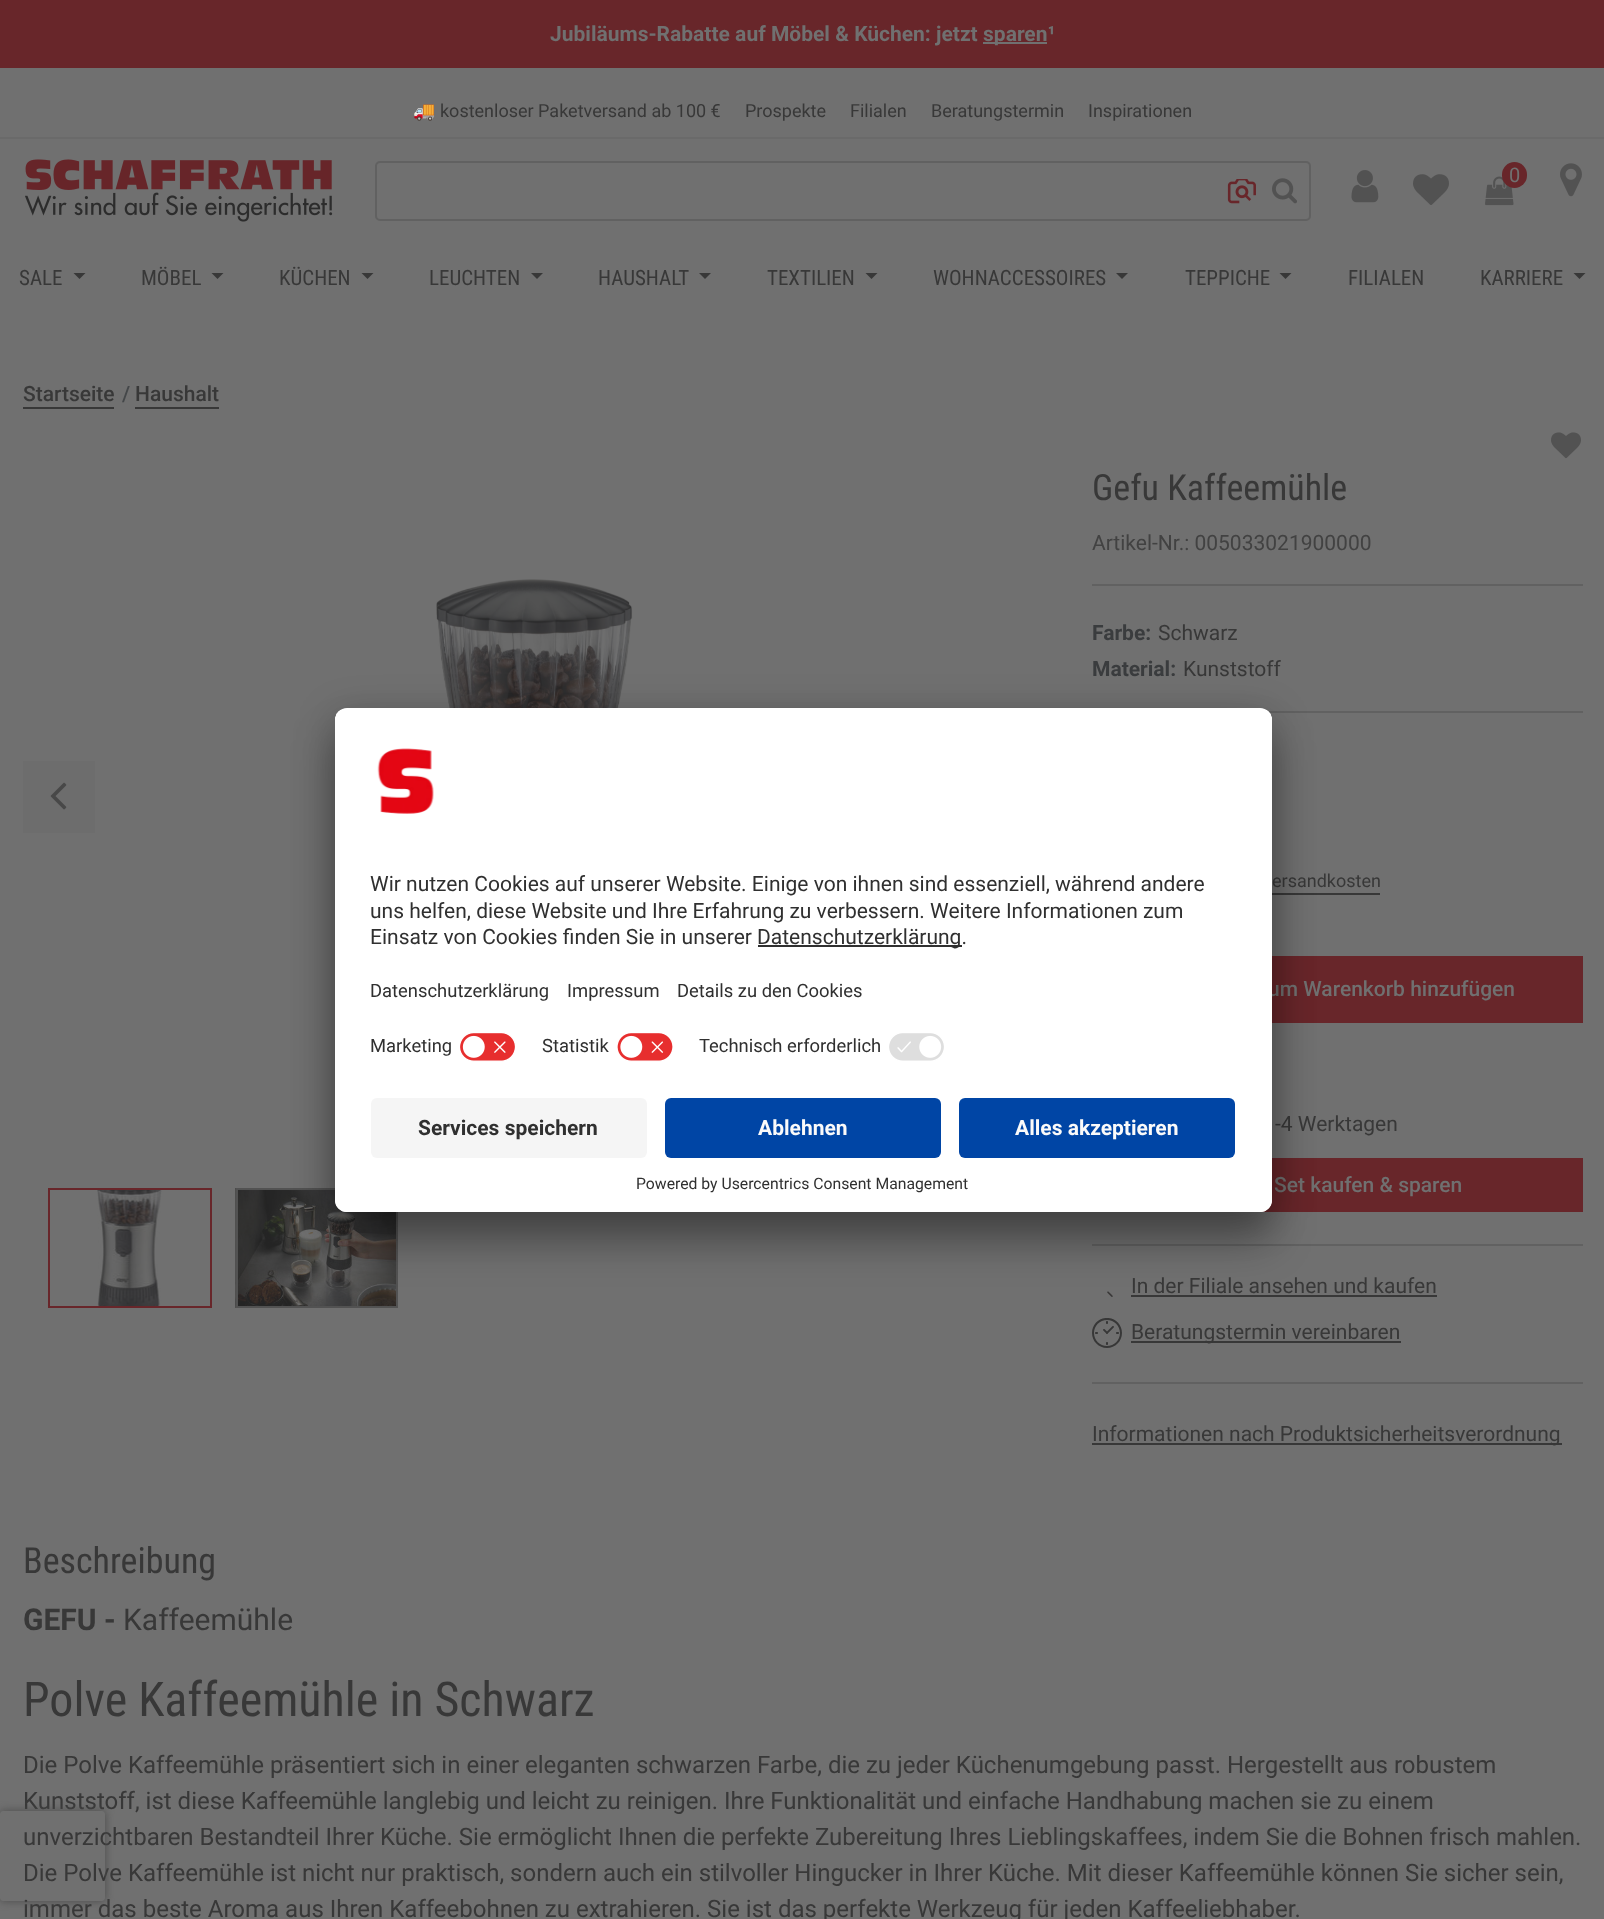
(async () => {
    const canvas = document.querySelector("canvas");
    canvas.width = 1604;
    canvas.height = 1919;
    const context = canvas.getContext("2d");
    context.miterLimit = 4;
    context.fontKerning = "normal";
    function write(s, x, y, font, color) {
        context.font = font;
        context.fillStyle = color;
        context.fillText(s, x, y);
    }
    function block(x, y, w, h, color) {
        context.fillStyle = color;
        context.fillRect(x, y, w, h);
    }
    function card(x, y, w, h, r, color) {
        context.fillStyle = color;
        context.beginPath();
        context.roundRect(x, y, w, h, r);
        context.fill();
    }
    async function photo(src, x, y, w, h) {
        const img = new Image();
        img.src = src;
        await img.decode();
        context.drawImage(img, x, y, w, h);
    }

    block(0, 0, 1604, 1919, "rgb(112, 112, 112)");
    block(0, 0, 1604, 68, "rgb(104, 38, 42)");
    write("Jubiläums-Rabatte auf Möbel & Küchen: jetzt", 550, 41, "bold 21px Roboto", "rgb(112, 112, 112)");
    block(983, 42, 64, 2, "rgb(112, 112, 112)");
    write("sparen¹", 983, 41, "bold 21px Roboto", "rgb(112, 112, 112)");
    write("🚚", 413, 117, "18px Noto Color Emoji", "rgb(56, 56, 56)");
    write("kostenloser Paketversand ab 100 €", 440, 117, "18px Roboto", "rgb(56, 56, 56)");
    write("Prospekte", 745, 117, "18px Roboto", "rgb(56, 56, 56)");
    write("Filialen", 850, 117, "18px Roboto", "rgb(56, 56, 56)");
    write("Beratungstermin", 931, 117, "18px Roboto", "rgb(56, 56, 56)");
    write("Inspirationen", 1088, 117, "18px Roboto", "rgb(56, 56, 56)");
    block(0, 137, 1604, 2, "rgb(106, 106, 106)");
    await photo("media/1.png", 25, 159, 308, 63);
    context.beginPath();
    context.roundRect(376, 162, 934, 58, 4);
    context.strokeStyle = "rgb(97, 97, 97)";
    context.lineWidth = 2;
    context.stroke();
    await photo("media/2.png", 1272, 178, 25, 26);
    await photo("media/3.png", 1227, 179, 29, 25);
    await photo("media/4.png", 1351, 170, 28, 33);
    await photo("media/5.png", 1413, 174, 36, 31);
    await photo("media/6.png", 1485, 176, 29, 30);
    card(1502, 162, 25, 26, 12.5, "rgb(104, 38, 42)");
    write("0", 1509, 182, "20px Roboto", "rgb(112, 112, 112)");
    await photo("media/7.png", 1560, 163, 22, 34);
    write("SALE", 19, 285, "21px Roboto Condensed", "rgb(56, 56, 56)");
    context.beginPath();
    context.moveTo(73.5, 273);
    context.lineTo(85.5, 273);
    context.lineTo(79.5, 279);
    context.closePath();
    context.fill();
    write("MÖBEL", 141, 285, "21px Roboto Condensed", "rgb(56, 56, 56)");
    context.beginPath();
    context.moveTo(211.5, 273);
    context.lineTo(223.5, 273);
    context.lineTo(217.5, 279);
    context.closePath();
    context.fill();
    write("KÜCHEN", 279, 285, "21px Roboto Condensed", "rgb(56, 56, 56)");
    context.beginPath();
    context.moveTo(361.5, 273);
    context.lineTo(373.5, 273);
    context.lineTo(367.5, 279);
    context.closePath();
    context.fill();
    write("LEUCHTEN", 429, 285, "21px Roboto Condensed", "rgb(56, 56, 56)");
    context.beginPath();
    context.moveTo(531, 273);
    context.lineTo(543, 273);
    context.lineTo(537, 279);
    context.closePath();
    context.fill();
    write("HAUSHALT", 598, 285, "21px Roboto Condensed", "rgb(56, 56, 56)");
    context.beginPath();
    context.moveTo(699, 273);
    context.lineTo(711, 273);
    context.lineTo(705, 279);
    context.closePath();
    context.fill();
    write("TEXTILIEN", 767, 285, "21px Roboto Condensed", "rgb(56, 56, 56)");
    context.beginPath();
    context.moveTo(865.5, 273);
    context.lineTo(877.5, 273);
    context.lineTo(871.5, 279);
    context.closePath();
    context.fill();
    write("WOHNACCESSOIRES", 933, 285, "21px Roboto Condensed", "rgb(56, 56, 56)");
    context.beginPath();
    context.moveTo(1116, 273);
    context.lineTo(1128, 273);
    context.lineTo(1122, 279);
    context.closePath();
    context.fill();
    write("TEPPICHE", 1185, 285, "21px Roboto Condensed", "rgb(56, 56, 56)");
    context.beginPath();
    context.moveTo(1279.5, 273);
    context.lineTo(1291.5, 273);
    context.lineTo(1285.5, 279);
    context.closePath();
    context.fill();
    write("FILIALEN", 1348, 285, "21px Roboto Condensed", "rgb(56, 56, 56)");
    write("KARRIERE", 1480, 285, "21px Roboto Condensed", "rgb(56, 56, 56)");
    context.beginPath();
    context.moveTo(1573.5, 273);
    context.lineTo(1585.5, 273);
    context.lineTo(1579.5, 279);
    context.closePath();
    context.fill();
    write("Startseite", 23, 401, "500 21px Roboto", "rgb(56, 56, 56)");
    block(23, 407, 91, 2, "rgb(56, 56, 56)");
    write("/", 122, 401, "500 21px Roboto", "rgb(68, 71, 73)");
    write("Haushalt", 135, 401, "500 21px Roboto", "rgb(56, 56, 56)");
    block(135, 407, 84, 2, "rgb(56, 56, 56)");
    await photo("media/8.png", 436, 579, 197, 129);
    block(23, 761, 72, 72, "rgb(109, 109, 109)");
    await photo("media/9.png", 50, 782, 17, 28);
    await photo("media/10.png", 96, 1190, 66, 116);
    context.strokeStyle = "rgb(104, 38, 42)";
    context.strokeRect(49, 1189, 162, 118);
    await photo("media/11.png", 235, 1188, 161, 120);
    context.strokeStyle = "rgb(82, 82, 82)";
    context.strokeRect(237, 1189, 160, 118);
    await photo("media/12.png", 1551, 432, 30, 27);
    write("Gefu Kaffeemühle", 1092, 500, "36px Roboto Condensed", "rgb(56, 56, 56)");
    write("Artikel-Nr.: 005033021900000", 1092, 550, "21px Roboto", "rgb(66, 66, 66)");
    block(1092, 584, 491, 2, "rgb(97, 97, 97)");
    write("Farbe:", 1092, 640, "bold 21px Roboto", "rgb(58, 60, 62)");
    write("Schwarz", 1158, 640, "21px Roboto", "rgb(56, 56, 56)");
    write("Material:", 1092, 676, "bold 21px Roboto", "rgb(58, 60, 62)");
    write("Kunststoff", 1183, 676, "21px Roboto", "rgb(56, 56, 56)");
    block(1267, 711, 316, 2, "rgb(97, 97, 97)");
    write("ersandkosten", 1272, 887, "18px Roboto", "rgb(56, 56, 56)");
    block(1272, 893, 108, 2, "rgb(56, 56, 56)");
    block(1272, 956, 311, 67, "rgb(104, 38, 42)");
    write("um Warenkorb hinzufügen", 1268, 996, "500 21px Roboto", "rgb(112, 112, 112)");
    write("-4 Werktagen", 1275, 1131, "21px Roboto", "rgb(56, 56, 56)");
    block(1260, 1158, 323, 54, "rgb(104, 38, 42)");
    write("Set kaufen & sparen", 1274, 1192, "500 21px Roboto", "rgb(112, 112, 112)");
    block(1092, 1244, 491, 2, "rgb(97, 97, 97)");
    await photo("media/13.png", 1107, 1291, 6, 6);
    write("In der Filiale ansehen und kaufen", 1131, 1293, "21px Roboto", "rgb(56, 56, 56)");
    block(1131, 1295, 306, 2, "rgb(56, 56, 56)");
    await photo("media/14.png", 1092, 1318, 30, 30);
    block(1131, 1341, 270, 2, "rgb(56, 56, 56)");
    write("Beratungstermin vereinbaren", 1131, 1339, "21px Roboto", "rgb(56, 56, 56)");
    block(1092, 1382, 491, 2, "rgb(97, 97, 97)");
    block(1092, 1443, 470, 2, "rgb(56, 56, 56)");
    write("Informationen nach Produktsicherheitsverordnung", 1092, 1441, "21px Roboto", "rgb(56, 56, 56)");
    write("Beschreibung", 23, 1573, "36px Roboto Condensed", "rgb(56, 56, 56)");
    write("GEFU -", 23, 1630, "bold 30px Roboto", "rgb(56, 56, 56)");
    write("Kaffeemühle", 123, 1630, "30px Roboto", "rgb(56, 56, 56)");
    write("Polve Kaffeemühle in Schwarz", 23, 1716, "48px Roboto Condensed", "rgb(56, 56, 56)");
    write("Die Polve Kaffeemühle präsentiert sich in einer eleganten schwarzen Farbe, die zu jeder Küchenumgebung passt. Hergestellt aus robustem", 23, 1773, "24px Roboto", "rgb(56, 56, 56)");
    write("Kunststoff, ist diese Kaffeemühle langlebig und leicht zu reinigen. Ihre Funktionalität und einfache Handhabung machen sie zu einem", 23, 1809, "24px Roboto", "rgb(56, 56, 56)");
    write("unverzichtbaren Bestandteil Ihrer Küche. Sie ermöglicht Ihnen die perfekte Zubereitung Ihres Lieblingskaffees, indem Sie die Bohnen frisch mahlen.", 23, 1845, "24px Roboto", "rgb(56, 56, 56)");
    write("Die Polve Kaffeemühle ist nicht nur praktisch, sondern auch ein stilvoller Hingucker in Ihrer Küche. Mit dieser Kaffeemühle können Sie sicher sein,", 23, 1881, "24px Roboto", "rgb(56, 56, 56)");
    write("immer das beste Aroma aus Ihren Kaffeebohnen zu extrahieren. Sie ist das perfekte Werkzeug für jeden Kaffeeliebhaber.", 23, 1917, "24px Roboto", "rgb(56, 56, 56)");
    context.fillStyle = "rgba(0, 0, 0, 0.3)";
    context.filter = "blur(21px)";
    context.beginPath();
    context.roundRect(335, 738, 937, 504, 12);
    context.fill();
    context.filter = "none";
    context.fillStyle = "rgba(0, 0, 0, 0.22)";
    context.filter = "blur(19.5px)";
    context.beginPath();
    context.roundRect(335, 716, 937, 504, 12);
    context.fill();
    context.filter = "none";
    card(335, 708, 937, 504, 12, "rgb(255, 255, 255)");
    context.save();
    context.beginPath();
    context.roundRect(335, 708, 937, 504, 12);
    context.clip();
    context.beginPath();
    context.roundRect(335, 708, 937, 378, [12, 12, 0, 0]);
    context.clip();
    block(335, 710, 937, 376, "rgb(255, 255, 255)");
    block(335, 710, 937, 316, "rgb(255, 255, 255)");
    context.restore();
    await photo("media/15.png", 377, 748, 57, 66);
    write("Wir nutzen Cookies auf unserer Website. Einige von ihnen sind essenziell, während andere", 370, 891, "21px Roboto", "rgb(48, 48, 48)");
    write("uns helfen, diese Website und Ihre Erfahrung zu verbessern. Weitere Informationen zum", 370, 918, "21px Roboto", "rgb(48, 48, 48)");
    write("Einsatz von Cookies finden Sie in unserer", 370, 944, "21px Roboto", "rgb(48, 48, 48)");
    block(758, 945, 204, 2, "rgb(48, 48, 48)");
    write("Datenschutzerklärung.", 757, 944, "21px Roboto", "rgb(48, 48, 48)");
    write("Datenschutzerklärung", 370, 997, "18.4px Roboto", "rgb(48, 48, 48)");
    write("Impressum", 567, 997, "18.4px Roboto", "rgb(48, 48, 48)");
    write("Details zu den Cookies", 677, 997, "18.4px Roboto", "rgb(48, 48, 48)");
    write("Marketing", 370, 1052, "18.4px Roboto", "rgb(48, 48, 48)");
    await photo("media/16.png", 460, 1032, 56, 30);
    write("Statistik", 542, 1052, "18.4px Roboto", "rgb(48, 48, 48)");
    await photo("media/17.png", 617, 1033, 56, 29);
    write("Technisch erforderlich", 699, 1052, "18.4px Roboto", "rgb(48, 48, 48)");
    await photo("media/18.png", 889, 1033, 55, 28);
    context.fillStyle = "rgb(255, 255, 255)";
    context.beginPath();
    context.roundRect(335, 1086, 937, 126, [0, 0, 12, 12]);
    context.fill();
    card(371, 1098, 276, 60, 6, "rgb(245, 245, 245)");
    write("Services speichern", 418, 1135, "bold 21px Roboto", "rgb(48, 48, 48)");
    card(665, 1098, 276, 60, 6, "rgb(0, 69, 165)");
    write("Ablehnen", 758, 1135, "bold 21px Roboto", "rgb(250, 250, 250)");
    card(959, 1098, 276, 60, 6, "rgb(0, 69, 165)");
    write("Alles akzeptieren", 1015, 1135, "bold 21px Roboto", "rgb(250, 250, 250)");
    write("Powered by Usercentrics Consent Management", 636, 1189, "15.75px Roboto", "rgb(48, 48, 48)");
    context.save();
    context.beginPath();
    context.moveTo(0, 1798);
    context.lineTo(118, 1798);
    context.lineTo(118, 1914);
    context.lineTo(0, 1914);
    context.closePath();
    context.moveTo(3, 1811);
    context.lineTo(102, 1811);
    context.bezierCurveTo(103.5, 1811, 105, 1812.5, 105, 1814);
    context.lineTo(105, 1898);
    context.bezierCurveTo(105, 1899.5, 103.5, 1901, 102, 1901);
    context.lineTo(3, 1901);
    context.bezierCurveTo(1.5, 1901, 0, 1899.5, 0, 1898);
    context.lineTo(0, 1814);
    context.bezierCurveTo(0, 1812.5, 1.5, 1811, 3, 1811);
    context.closePath();
    context.clip("evenodd");
    context.fillStyle = "rgb(74, 74, 74)";
    context.filter = "blur(4px)";
    context.beginPath();
    context.roundRect(0, 1811, 105, 90, 3);
    context.fill();
    context.filter = "none";
    context.restore();
})();
